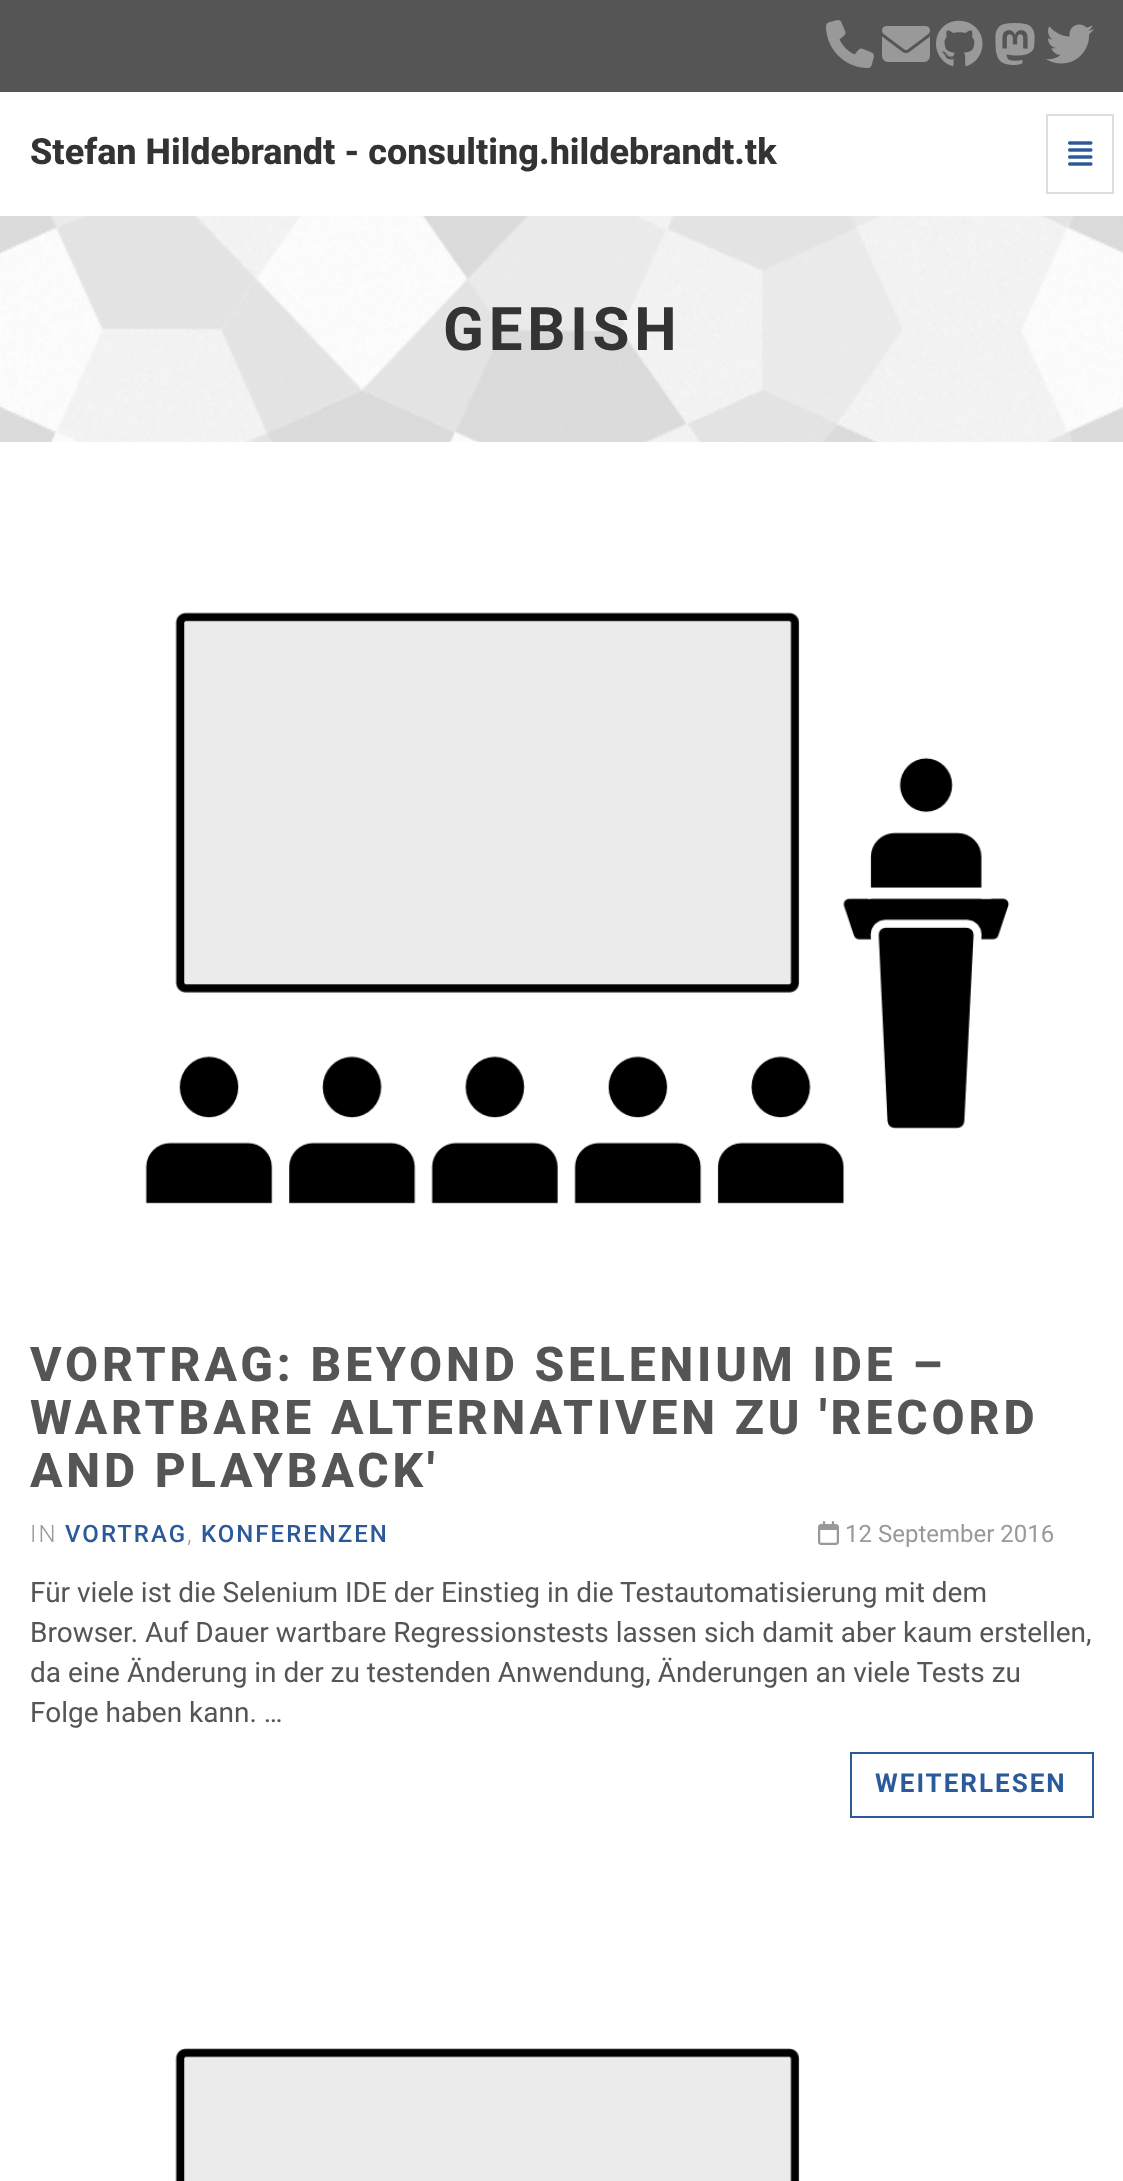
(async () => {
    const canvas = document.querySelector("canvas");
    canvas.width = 1123;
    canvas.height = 2181;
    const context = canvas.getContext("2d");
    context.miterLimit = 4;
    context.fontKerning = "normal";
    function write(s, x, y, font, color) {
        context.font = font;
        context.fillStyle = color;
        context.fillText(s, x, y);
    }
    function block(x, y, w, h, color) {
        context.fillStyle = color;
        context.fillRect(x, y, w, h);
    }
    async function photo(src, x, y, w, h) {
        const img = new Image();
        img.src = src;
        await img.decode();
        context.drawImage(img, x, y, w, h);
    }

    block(0, 0, 1123, 2181, "rgb(255, 255, 255)");
    block(0, 0, 1123, 92, "rgb(85, 85, 85)");
    await photo("media/1.png", 826, 20, 48, 48);
    await photo("media/2.png", 882, 26, 48, 36);
    await photo("media/3.png", 936, 20, 47, 46);
    await photo("media/4.png", 995, 23, 40, 42);
    await photo("media/5.png", 1046, 24, 48, 40);
    write("Stefan Hildebrandt - consulting.hildebrandt.tk", 30, 164, "800 36px Roboto", "rgb(51, 51, 51)");
    context.strokeStyle = "rgb(221, 221, 221)";
    context.lineWidth = 2;
    context.strokeRect(1047, 115, 66, 78);
    await photo("media/6.png", 1068, 141, 25, 25);
    await photo("media/7.png", 0, 216, 1123, 226);
    context.letterSpacing = "4.75px";
    write("GEBISH", 443, 350, "bold 60px Roboto", "rgb(51, 51, 51)");
    await photo("media/8.png", 145, 612, 865, 592);
    context.letterSpacing = "3.85px";
    write("VORTRAG: BEYOND SELENIUM IDE –", 30, 1381, "800 48px Roboto", "rgb(85, 85, 85)");
    write("WARTBARE ALTERNATIVEN ZU 'RECORD", 30, 1434, "800 48px Roboto", "rgb(85, 85, 85)");
    write("AND PLAYBACK'", 30, 1487, "800 48px Roboto", "rgb(85, 85, 85)");
    context.letterSpacing = "2px";
    write("IN", 30, 1542, "300 24px Roboto", "rgb(153, 153, 153)");
    write("VORTRAG", 65, 1542, "500 24px Roboto", "rgb(42, 90, 154)");
    write(",", 187, 1542, "300 24px Roboto", "rgb(153, 153, 153)");
    write("KONFERENZEN", 201, 1542, "500 24px Roboto", "rgb(42, 90, 154)");
    await photo("media/9.png", 818, 1521, 21, 24);
    context.letterSpacing = "0px";
    write("12 September 2016", 845, 1542, "24px Roboto", "rgb(153, 153, 153)");
    write("Für viele ist die Selenium IDE der Einstieg in die Testautomatisierung mit dem", 30, 1602, "28px Roboto", "rgb(85, 85, 85)");
    write("Browser. Auf Dauer wartbare Regressionstests lassen sich damit aber kaum erstellen,", 30, 1642, "28px Roboto", "rgb(85, 85, 85)");
    write("da eine Änderung in der zu testenden Anwendung, Änderungen an viele Tests zu", 30, 1682, "28px Roboto", "rgb(85, 85, 85)");
    write("Folge haben kann. …", 30, 1722, "28px Roboto", "rgb(85, 85, 85)");
    context.strokeStyle = "rgb(42, 90, 154)";
    context.strokeRect(851, 1753, 242, 64);
    context.letterSpacing = "2px";
    write("WEITERLESEN", 875, 1792, "bold 26px Roboto", "rgb(42, 90, 154)");
    await photo("media/10.png", 175, 2048, 625, 133);
})();
